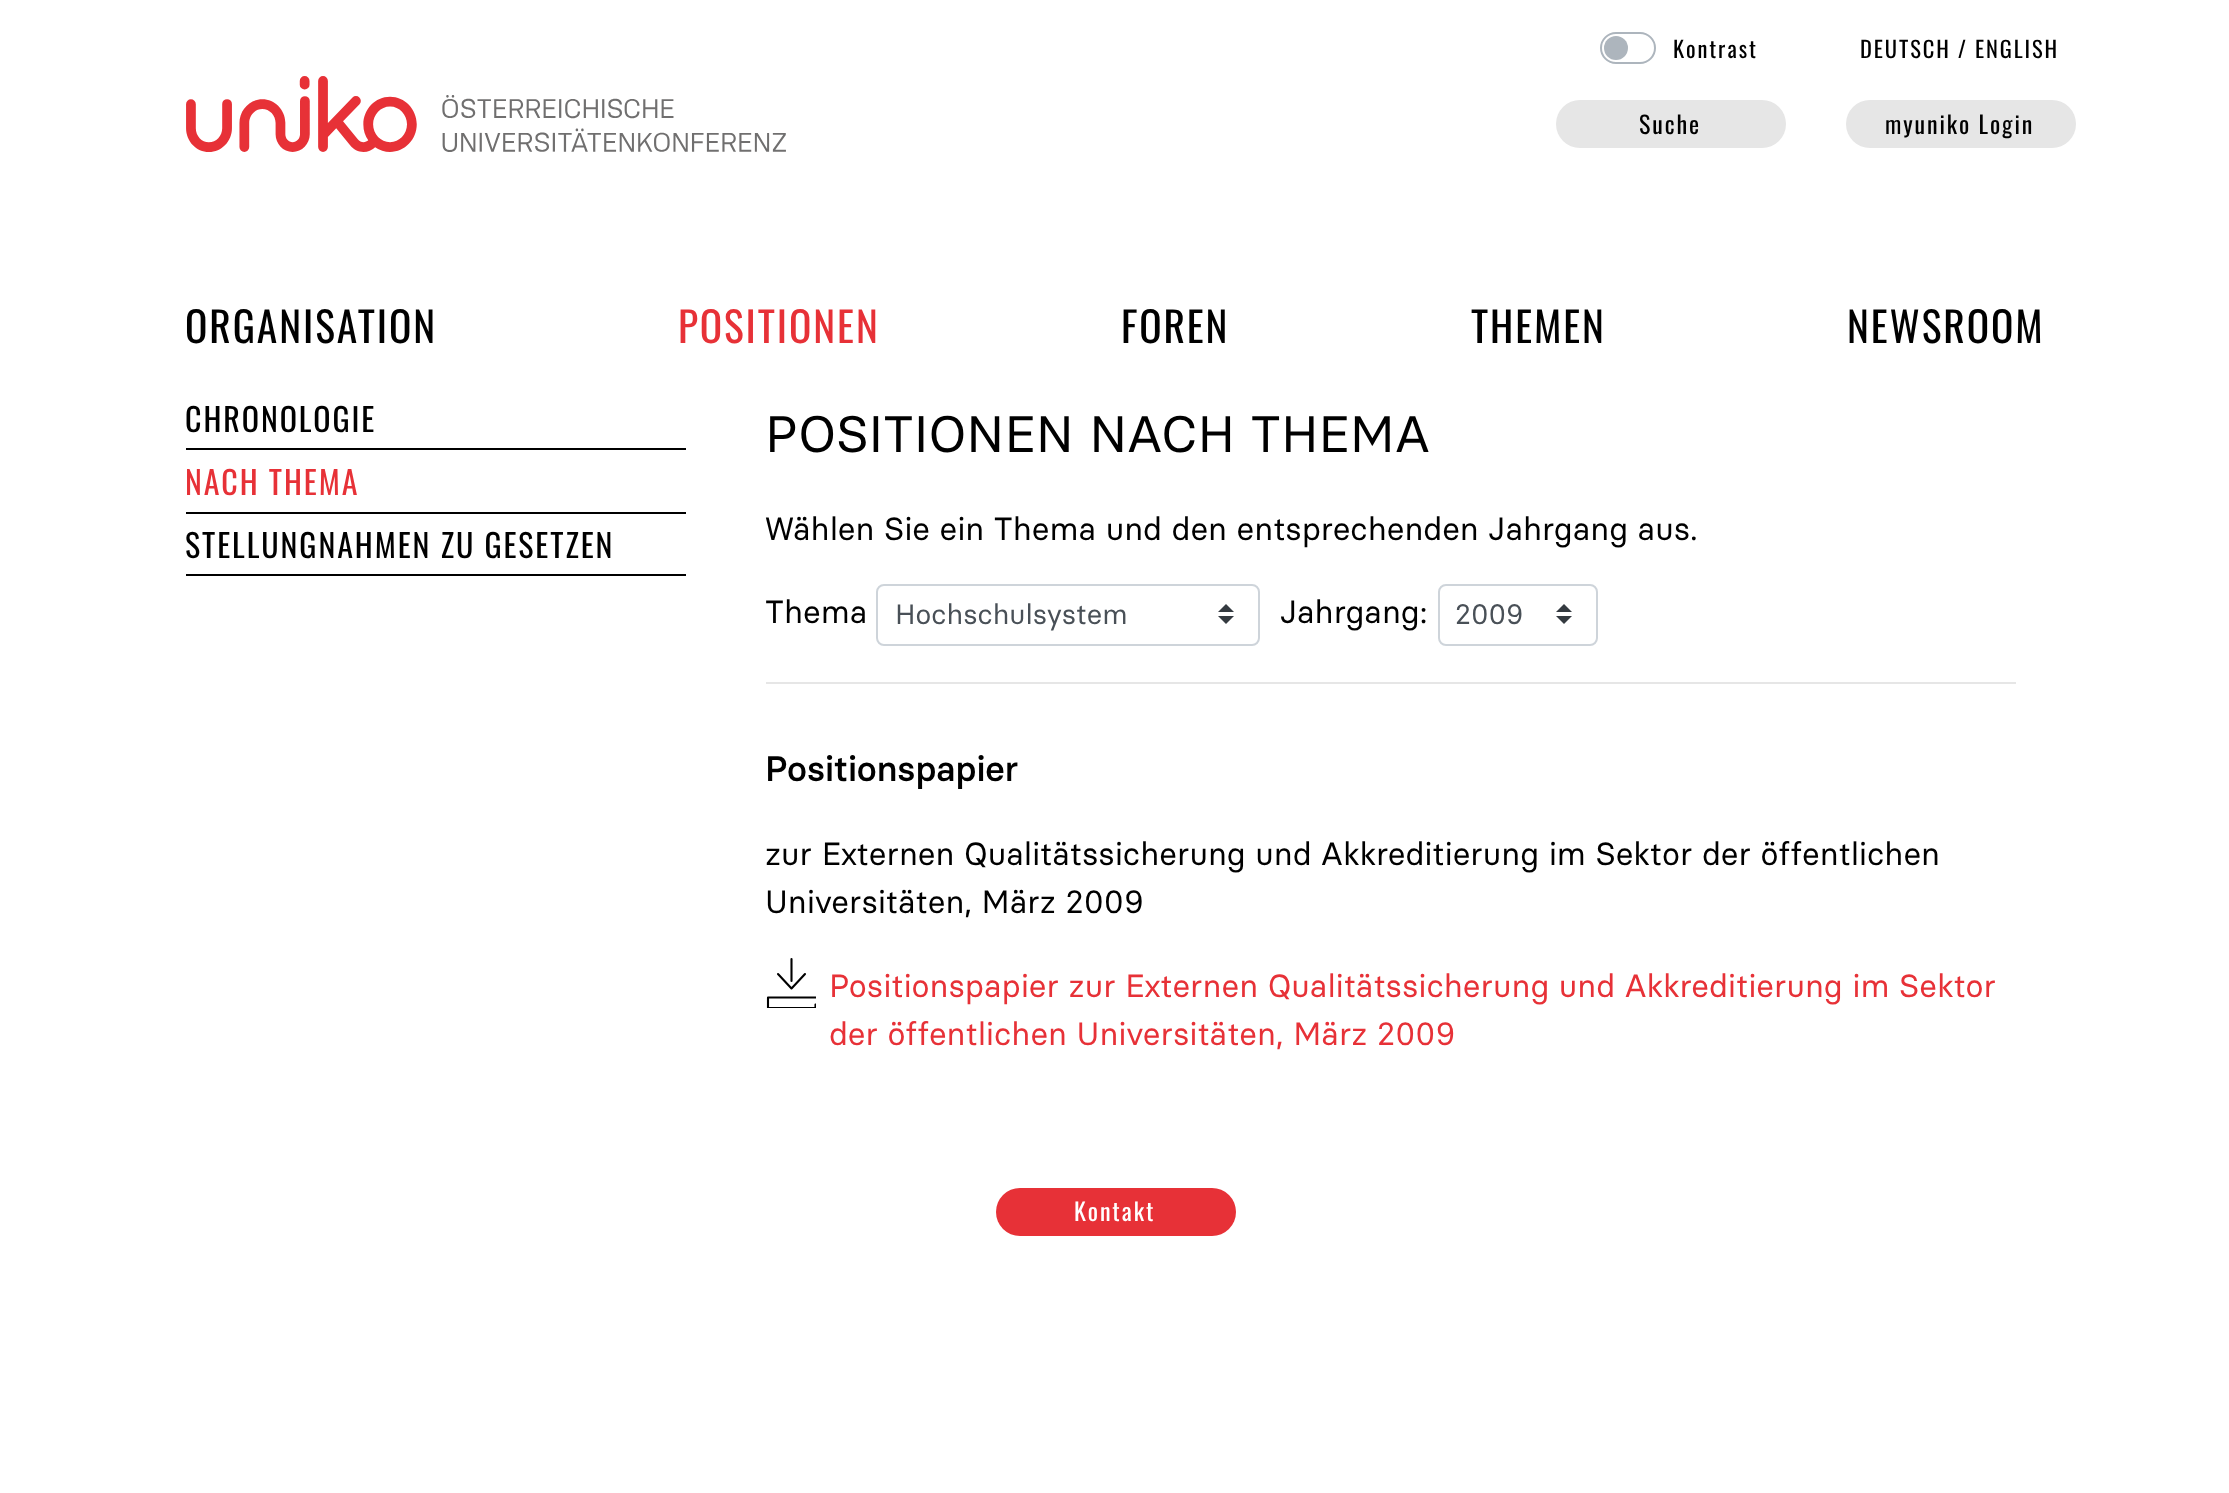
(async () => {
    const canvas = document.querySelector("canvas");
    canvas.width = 2229;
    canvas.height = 1493;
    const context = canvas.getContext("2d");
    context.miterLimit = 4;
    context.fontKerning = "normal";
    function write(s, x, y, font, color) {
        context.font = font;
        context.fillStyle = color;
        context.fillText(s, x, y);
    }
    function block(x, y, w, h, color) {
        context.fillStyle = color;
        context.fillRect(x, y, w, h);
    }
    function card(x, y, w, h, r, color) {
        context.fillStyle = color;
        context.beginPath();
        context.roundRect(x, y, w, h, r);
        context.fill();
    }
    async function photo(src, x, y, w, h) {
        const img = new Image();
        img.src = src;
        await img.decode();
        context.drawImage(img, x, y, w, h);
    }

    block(0, 0, 2229, 1493, "rgb(255, 255, 255)");
    await photo("media/1.png", 186, 76, 600, 76);
    context.beginPath();
    context.roundRect(1601, 33, 54, 30, 15);
    context.strokeStyle = "rgb(173, 181, 189)";
    context.lineWidth = 2;
    context.stroke();
    context.fillStyle = "rgb(173, 181, 189)";
    context.beginPath();
    context.arc(1616, 48, 12, 0, Math.PI * 2);
    context.fill();
    context.letterSpacing = "1.9px";
    write("Kontrast", 1673, 58, "22.5px Oswald", "rgb(0, 0, 0)");
    write("DEUTSCH / ENGLISH", 1860, 58, "22.5px Oswald", "rgb(0, 0, 0)");
    card(1556, 100, 230, 48, 24, "rgb(230, 230, 230)");
    write("Suche", 1639, 134, "24px Oswald", "rgb(0, 0, 0)");
    card(1846, 100, 230, 48, 24, "rgb(230, 230, 230)");
    write("myuniko Login", 1885, 134, "24px Oswald", "rgb(0, 0, 0)");
    write("ORGANISATION", 185, 343, "41.5px Oswald", "rgb(0, 0, 0)");
    write("POSITIONEN", 678, 343, "41.5px Oswald", "rgb(231, 49, 55)");
    write("FOREN", 1121, 343, "41.5px Oswald", "rgb(0, 0, 0)");
    write("THEMEN", 1471, 343, "41.5px Oswald", "rgb(0, 0, 0)");
    write("NEWSROOM", 1847, 343, "41.5px Oswald", "rgb(0, 0, 0)");
    block(186, 448, 500, 2, "rgb(0, 0, 0)");
    write("CHRONOLOGIE", 185, 432, "32px Oswald", "rgb(0, 0, 0)");
    block(186, 512, 500, 2, "rgb(0, 0, 0)");
    write("NACH THEMA", 185, 495, "32px Oswald", "rgb(231, 49, 55)");
    block(186, 574, 500, 2, "rgb(0, 0, 0)");
    write("STELLUNGNAHMEN ZU GESETZEN", 185, 558, "32px Oswald", "rgb(0, 0, 0)");
    context.letterSpacing = "0px";
    write("POSITIONEN NACH THEMA", 765, 452, "51.25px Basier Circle", "rgb(0, 0, 0)");
    write("Wählen Sie ein Thema und den entsprechenden Jahrgang aus.", 765, 540, "32px Basier Circle", "rgb(0, 0, 0)");
    write("Thema", 765, 623, "32px Basier Circle", "rgb(0, 0, 0)");
    context.fillStyle = "rgb(52, 58, 64)";
    context.beginPath();
    context.moveTo(1226, 604);
    context.lineTo(1218, 612);
    context.lineTo(1234, 612);
    context.closePath();
    context.moveTo(1226, 624);
    context.lineTo(1218, 616);
    context.lineTo(1234, 616);
    context.closePath();
    context.fill();
    context.beginPath();
    context.roundRect(877, 585, 382, 60, 7);
    context.strokeStyle = "rgb(206, 212, 218)";
    context.stroke();
    write("Hochschulsystem", 895, 624, "28px Basier Circle", "rgb(73, 80, 87)");
    write("Jahrgang:", 1280, 623, "32px Basier Circle", "rgb(0, 0, 0)");
    context.fillStyle = "rgb(52, 58, 64)";
    context.beginPath();
    context.moveTo(1564, 604);
    context.lineTo(1556, 612);
    context.lineTo(1572, 612);
    context.closePath();
    context.moveTo(1564, 624);
    context.lineTo(1556, 616);
    context.lineTo(1572, 616);
    context.closePath();
    context.fill();
    context.beginPath();
    context.roundRect(1439, 585, 158, 60, 7);
    context.stroke();
    write("2009", 1455, 624, "28px Basier Circle", "rgb(73, 80, 87)");
    block(766, 682, 1250, 2, "rgb(230, 230, 230)");
    write("Positionspapier", 765, 781, "500 35.25px Basier Circle", "rgb(0, 0, 0)");
    write("zur Externen Qualitätssicherung und Akkreditierung im Sektor der öffentlichen", 765, 865, "32px Basier Circle", "rgb(0, 0, 0)");
    write("Universitäten, März 2009", 765, 913, "32px Basier Circle", "rgb(0, 0, 0)");
    context.beginPath();
    context.moveTo(791.5, 981);
    context.lineTo(791.5, 959);
    context.moveTo(778, 974);
    context.lineTo(791.5, 988.5);
    context.lineTo(805, 974);
    context.strokeStyle = "rgb(0, 0, 0)";
    context.lineWidth = 2.1;
    context.lineCap = "round";
    context.lineJoin = "round";
    context.stroke();
    context.save();
    context.beginPath();
    context.rect(766, 958, 50, 50);
    context.clip();
    context.beginPath();
    context.moveTo(815.5, 997.5);
    context.lineTo(768, 997.5);
    context.lineTo(768, 1008);
    context.lineTo(815.5, 1008);
    context.lineTo(815.5, 1004.5);
    context.stroke();
    context.restore();
    write("Positionspapier zur Externen Qualitätssicherung und Akkreditierung im Sektor", 829, 997, "32px Basier Circle", "rgb(231, 49, 55)");
    write("der öffentlichen Universitäten, März 2009", 829, 1045, "32px Basier Circle", "rgb(231, 49, 55)");
    card(996, 1188, 240, 48, 24, "rgb(231, 49, 55)");
    context.letterSpacing = "1.9px";
    write("Kontakt", 1074, 1221, "24px Oswald", "rgb(255, 255, 255)");
})();
